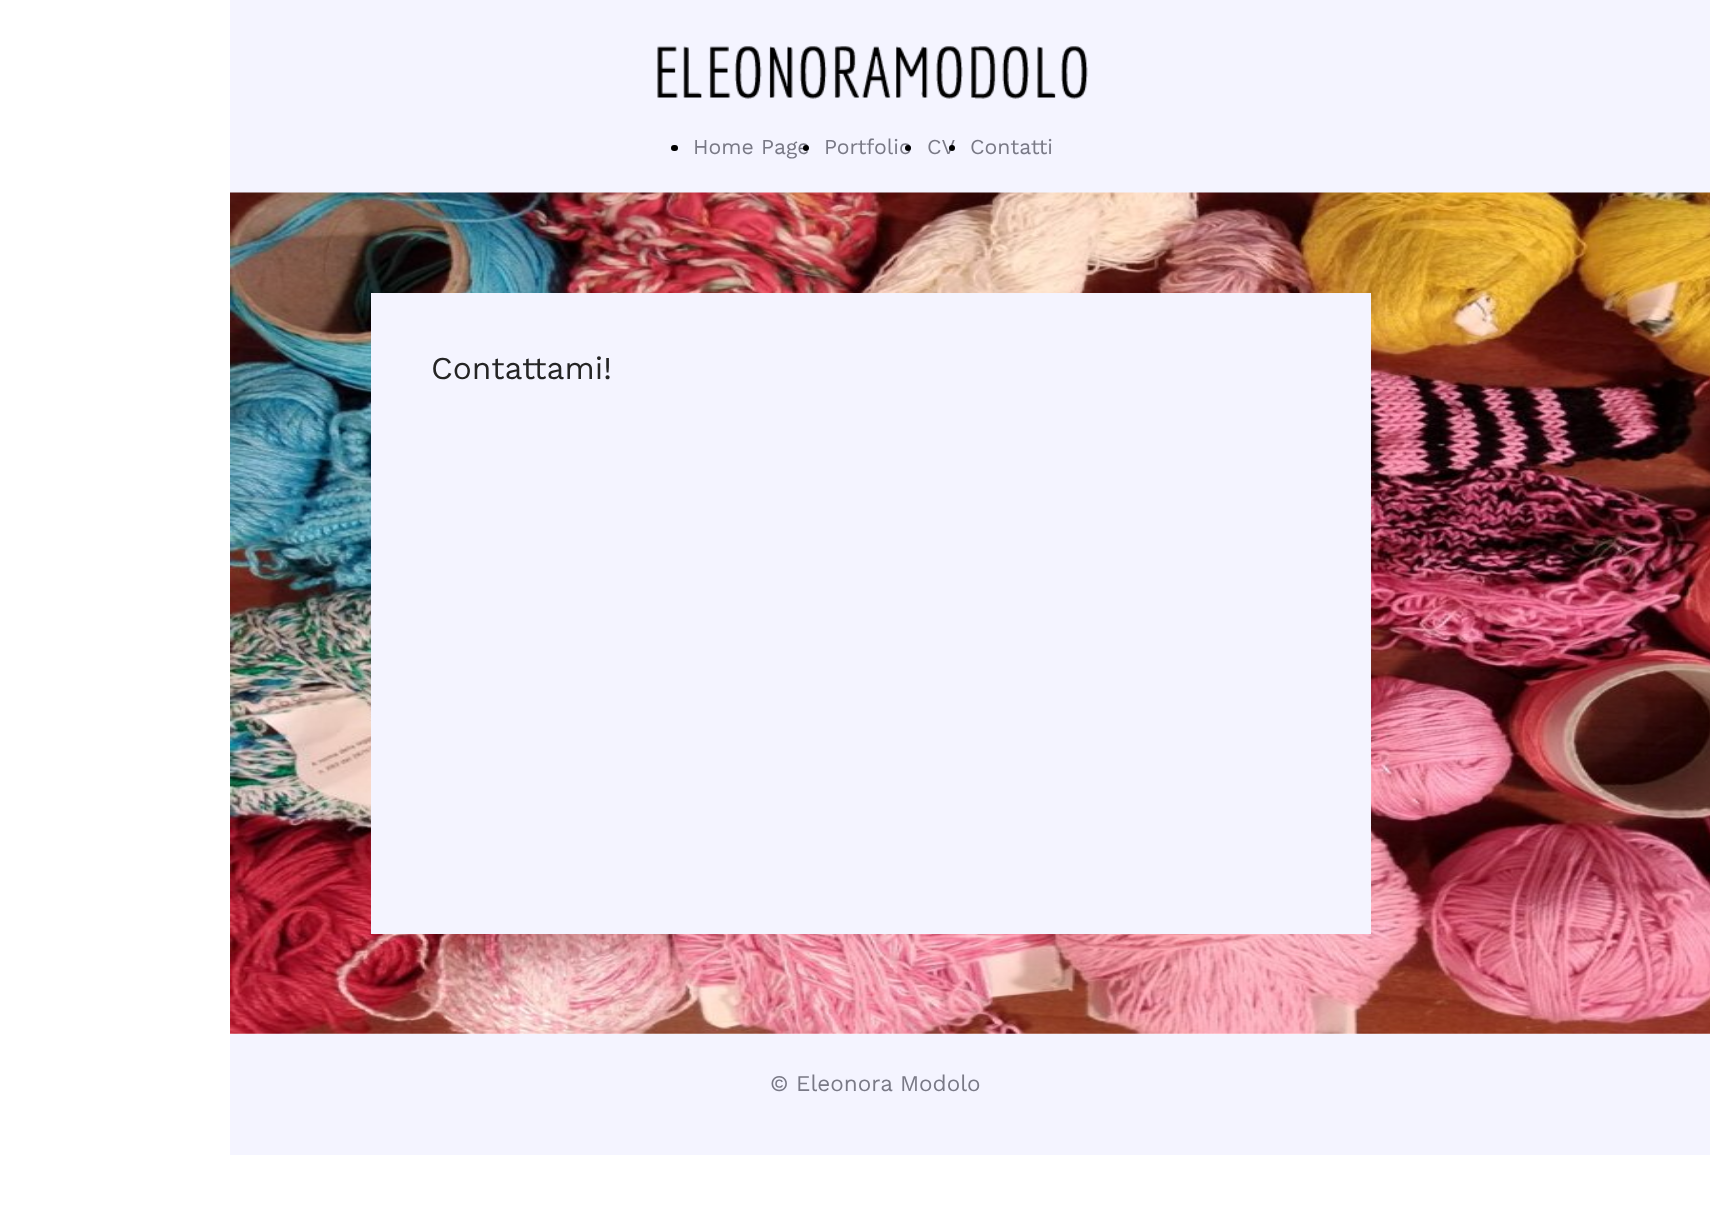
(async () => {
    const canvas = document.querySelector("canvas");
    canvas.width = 1710;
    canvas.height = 1229;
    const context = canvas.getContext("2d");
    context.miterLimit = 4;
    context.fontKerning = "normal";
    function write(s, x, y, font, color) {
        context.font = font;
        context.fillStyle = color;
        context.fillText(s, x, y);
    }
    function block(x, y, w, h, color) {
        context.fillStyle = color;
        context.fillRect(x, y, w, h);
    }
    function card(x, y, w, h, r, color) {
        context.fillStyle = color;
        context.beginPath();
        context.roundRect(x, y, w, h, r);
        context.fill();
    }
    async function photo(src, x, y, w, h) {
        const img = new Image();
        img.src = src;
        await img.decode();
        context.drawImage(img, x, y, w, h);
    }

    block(0, 0, 1710, 1229, "rgb(255, 255, 255)");
    block(230, 0, 1480, 193, "rgb(244, 244, 255)");
    await photo("media/1.png", 657, 46, 431, 53);
    card(671, 145, 7, 6, 3, "rgb(0, 0, 0)");
    write("Home Page", 693, 154, "21.25px Work Sans", "rgb(121, 121, 134)");
    context.fillStyle = "rgb(0, 0, 0)";
    context.beginPath();
    context.arc(806, 148, 3, 0, Math.PI * 2);
    context.fill();
    write("Portfolio", 824, 154, "21.25px Work Sans", "rgb(121, 121, 134)");
    context.fillStyle = "rgb(0, 0, 0)";
    context.beginPath();
    context.arc(908, 148, 3, 0, Math.PI * 2);
    context.fill();
    write("CV", 927, 154, "21.25px Work Sans", "rgb(121, 121, 134)");
    context.fillStyle = "rgb(0, 0, 0)";
    context.beginPath();
    context.arc(952, 148, 3, 0, Math.PI * 2);
    context.fill();
    write("Contatti", 970, 154, "21.25px Work Sans", "rgb(121, 121, 134)");
    await photo("media/2.png", 230, 192, 1480, 842);
    block(371, 293, 1000, 641, "rgb(244, 244, 255)");
    write("Contattami!", 431, 379, "31.75px Work Sans", "rgb(37, 37, 37)");
    block(230, 1034, 1480, 121, "rgb(244, 244, 255)");
    write("© Eleonora Modolo", 770, 1091, "22.5px Work Sans", "rgb(121, 121, 134)");
})();
